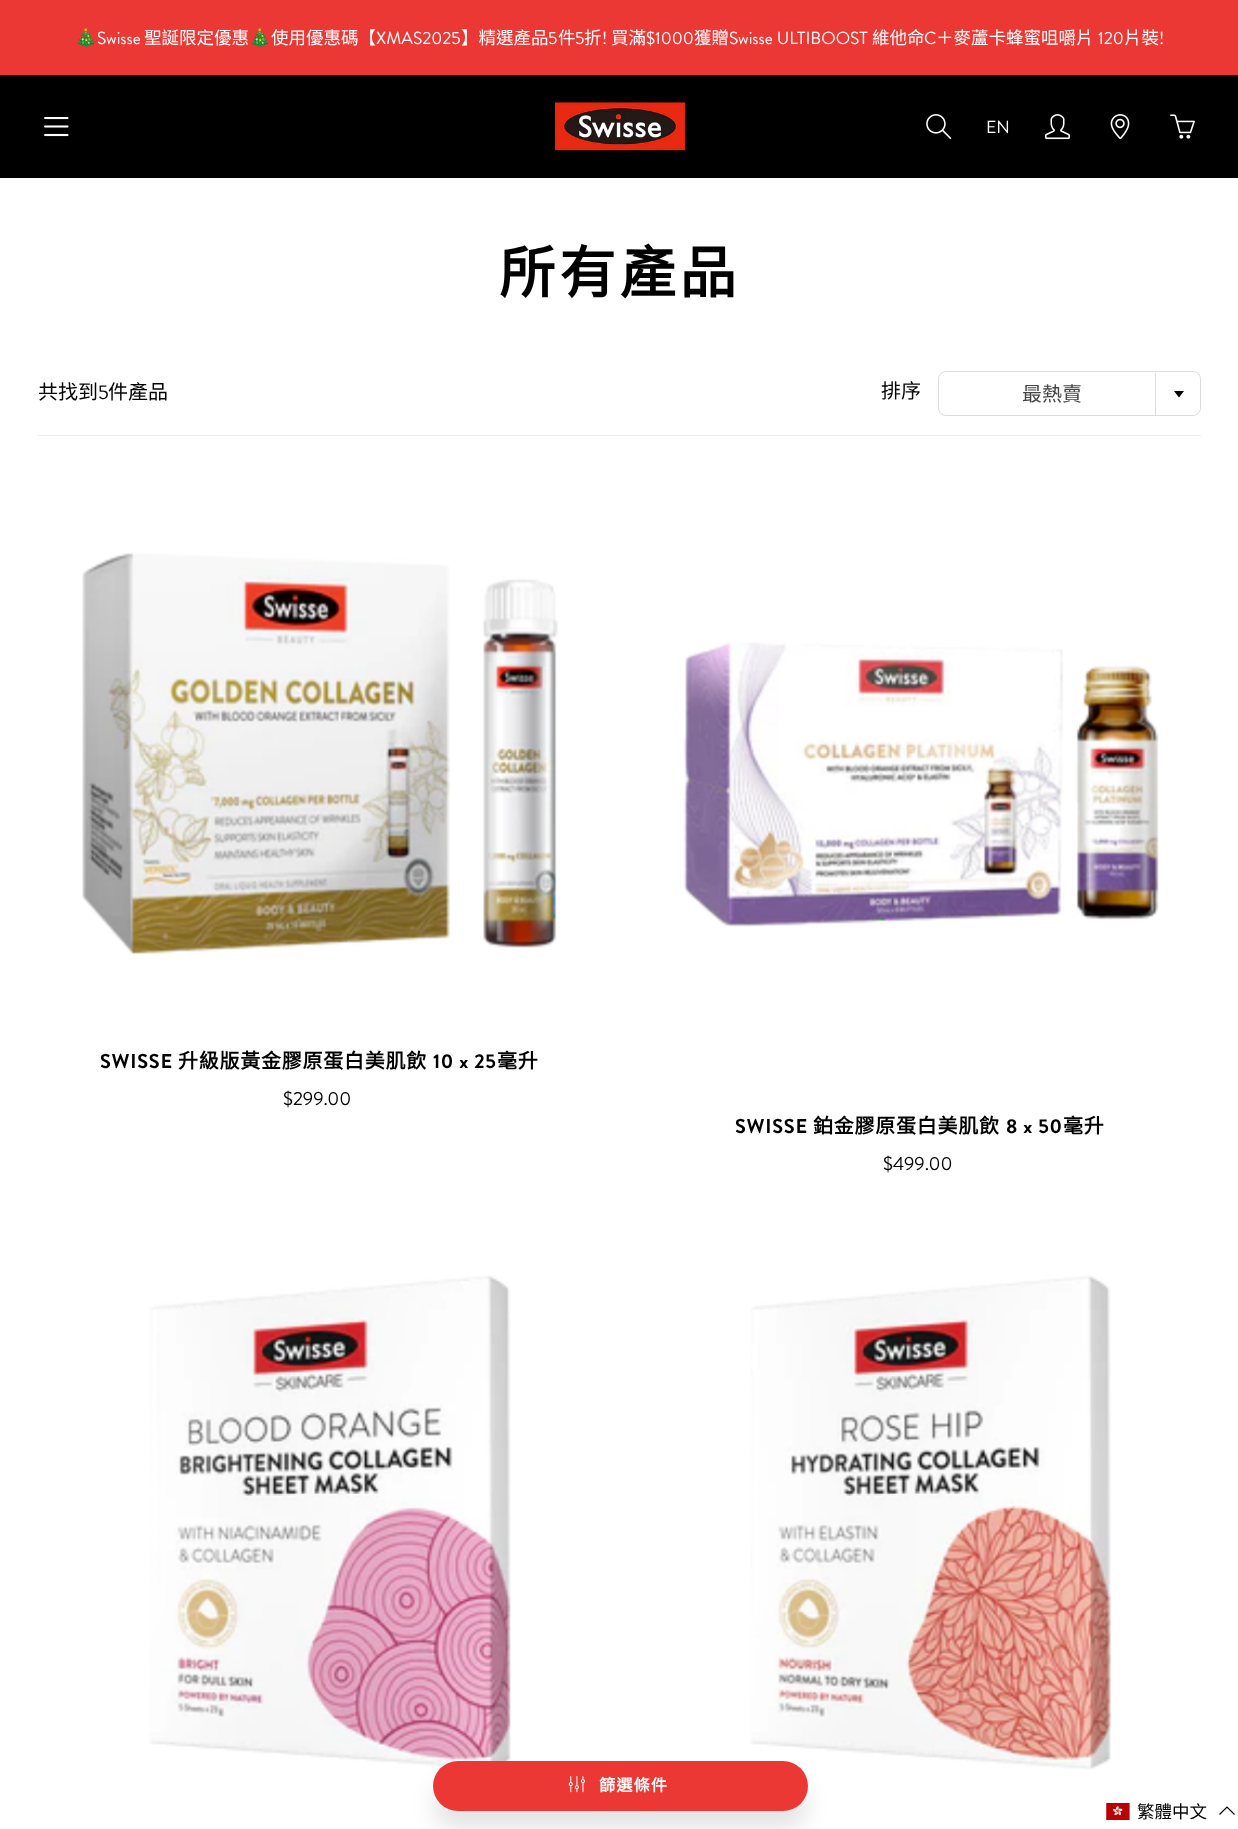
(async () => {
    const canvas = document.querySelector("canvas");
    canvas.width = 1238;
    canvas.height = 1829;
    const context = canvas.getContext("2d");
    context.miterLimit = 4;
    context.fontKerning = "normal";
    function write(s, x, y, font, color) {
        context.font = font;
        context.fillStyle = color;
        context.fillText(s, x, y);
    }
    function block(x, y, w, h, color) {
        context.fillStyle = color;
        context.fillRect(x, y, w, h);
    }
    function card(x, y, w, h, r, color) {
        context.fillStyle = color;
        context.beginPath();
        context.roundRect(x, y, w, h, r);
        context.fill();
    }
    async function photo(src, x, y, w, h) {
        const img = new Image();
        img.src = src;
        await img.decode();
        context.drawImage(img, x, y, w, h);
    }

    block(0, 0, 1238, 1829, "rgb(255, 255, 255)");
    block(0, 0, 1238, 75, "rgb(236, 56, 52)");
    write("🎄", 75, 44, "17.5px Noto Color Emoji", "rgb(255, 255, 255)");
    write("Swisse", 97, 44, "17.5px Brandon Grotesque", "rgb(255, 255, 255)");
    write("聖誕限定優惠", 144, 44, "17.5px Noto Sans CJK TC", "rgb(255, 255, 255)");
    write("🎄", 249, 44, "17.5px Noto Color Emoji", "rgb(255, 255, 255)");
    write("使用優惠碼【", 271, 44, "17.5px Noto Sans CJK TC", "rgb(255, 255, 255)");
    write("XMAS2025", 376, 44, "17.5px Brandon Grotesque", "rgb(255, 255, 255)");
    write("】精選產品", 461, 44, "17.5px Noto Sans CJK TC", "rgb(255, 255, 255)");
    write("5", 548, 44, "17.5px Brandon Grotesque", "rgb(255, 255, 255)");
    write("件", 558, 44, "17.5px Noto Sans CJK TC", "rgb(255, 255, 255)");
    write("5", 575, 44, "17.5px Brandon Grotesque", "rgb(255, 255, 255)");
    write("折", 584, 44, "17.5px Noto Sans CJK TC", "rgb(255, 255, 255)");
    write("!", 602, 44, "17.5px Brandon Grotesque", "rgb(255, 255, 255)");
    write("買滿", 611, 44, "17.5px Noto Sans CJK TC", "rgb(255, 255, 255)");
    write("$1000", 646, 44, "17.5px Brandon Grotesque", "rgb(255, 255, 255)");
    write("獲贈", 694, 44, "17.5px Noto Sans CJK TC", "rgb(255, 255, 255)");
    write("Swisse ULTIBOOST", 729, 44, "17.5px Brandon Grotesque", "rgb(255, 255, 255)");
    write("維他命", 872, 44, "17.5px Noto Sans CJK TC", "rgb(255, 255, 255)");
    write("C", 924, 44, "17.5px Brandon Grotesque", "rgb(255, 255, 255)");
    write("＋麥蘆卡蜂蜜咀嚼片", 936, 44, "17.5px Noto Sans CJK TC", "rgb(255, 255, 255)");
    write("120", 1098, 44, "17.5px Brandon Grotesque", "rgb(255, 255, 255)");
    write("片裝", 1124, 44, "17.5px Noto Sans CJK TC", "rgb(255, 255, 255)");
    write("!", 1159, 44, "17.5px Brandon Grotesque", "rgb(255, 255, 255)");
    block(0, 75, 1238, 103, "rgb(0, 0, 0)");
    await photo("media/1.png", 554, 102, 132, 49);
    await photo("media/2.png", 44, 117, 25, 20);
    await photo("media/3.png", 926, 114, 26, 25);
    write("EN", 986, 133, "17.5px Brandon Grotesque", "rgb(255, 255, 255)");
    await photo("media/4.png", 1045, 114, 25, 26);
    await photo("media/5.png", 1110, 114, 20, 26);
    await photo("media/6.png", 1170, 114, 25, 25);
    context.letterSpacing = "4px";
    write("所有產品", 499, 293, "bold 56.25px Noto Sans CJK TC", "rgb(0, 0, 0)");
    block(38, 435, 1163, 1, "rgb(237, 237, 237)");
    context.letterSpacing = "0px";
    write("共找到", 38, 399, "20px Noto Sans CJK TC", "rgb(0, 0, 0)");
    write("5", 98, 399, "20px Brandon Grotesque", "rgb(0, 0, 0)");
    write("件產品", 108, 399, "20px Noto Sans CJK TC", "rgb(0, 0, 0)");
    write("排序", 881, 398, "20px Noto Sans CJK TC", "rgb(0, 0, 0)");
    context.beginPath();
    context.roundRect(938.5, 371.5, 262, 44, 7.5);
    context.strokeStyle = "rgb(221, 221, 221)";
    context.stroke();
    write("最熱賣", 1022, 401, "20px Noto Sans CJK TC", "rgb(68, 68, 68)");
    context.fillStyle = "rgb(255, 255, 255)";
    context.beginPath();
    context.roundRect(1155, 373, 45, 42, [0, 8, 8, 0]);
    context.fill();
    block(1155, 373, 1, 42, "rgb(221, 221, 221)");
    context.fillStyle = "rgb(0, 0, 0)";
    context.beginPath();
    context.moveTo(1174, 391);
    context.lineTo(1184, 391);
    context.lineTo(1179, 397.5);
    context.closePath();
    context.fill();
    await photo("media/7.png", 82, 552, 476, 403);
    context.letterSpacing = "0.75px";
    write("SWISSE", 100, 1068, "bold 20px Brandon Grotesque", "rgb(0, 0, 0)");
    write("升級版黃金膠原蛋白美肌飲", 178, 1068, "bold 20px Noto Sans CJK TC", "rgb(0, 0, 0)");
    write("10 x 25", 433, 1068, "bold 20px Brandon Grotesque", "rgb(0, 0, 0)");
    write("毫升", 497, 1068, "bold 20px Noto Sans CJK TC", "rgb(0, 0, 0)");
    context.letterSpacing = "0px";
    write("$299.00", 283, 1105, "19px Brandon Grotesque", "rgb(0, 0, 0)");
    await photo("media/8.png", 683, 642, 476, 285);
    context.letterSpacing = "0.75px";
    write("SWISSE", 735, 1133, "bold 20px Brandon Grotesque", "rgb(0, 0, 0)");
    write("鉑金膠原蛋白美肌飲", 813, 1133, "bold 20px Noto Sans CJK TC", "rgb(0, 0, 0)");
    write("8 x 50", 1006, 1133, "bold 20px Brandon Grotesque", "rgb(0, 0, 0)");
    write("毫升", 1063, 1133, "bold 20px Noto Sans CJK TC", "rgb(0, 0, 0)");
    context.letterSpacing = "0px";
    write("$499.00", 883, 1170, "19px Brandon Grotesque", "rgb(0, 0, 0)");
    await photo("media/9.png", 149, 1275, 362, 492);
    await photo("media/10.png", 750, 1275, 362, 495);
    context.fillStyle = "rgba(0, 0, 0, 0.1)";
    context.filter = "blur(11px)";
    context.beginPath();
    context.roundRect(433, 1780, 375, 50, 25);
    context.fill();
    context.filter = "none";
    card(433, 1761, 375, 50, 25, "rgb(236, 56, 52)");
    await photo("media/11.png", 568, 1776, 17, 17);
    context.letterSpacing = "1px";
    write("篩選條件", 599, 1791, "bold 16.25px Noto Sans CJK TC", "rgb(255, 255, 255)");
    await photo("media/12.png", 1106, 1803, 24, 17);
    context.letterSpacing = "0px";
    write("繁體中文", 1137, 1818, "17.5px Noto Sans CJK TC", "rgb(0, 0, 0)");
    context.beginPath();
    context.moveTo(1234.5, 1814.5);
    context.lineTo(1227, 1807);
    context.lineTo(1219.5, 1814.5);
    context.strokeStyle = "rgb(0, 0, 0)";
    context.lineWidth = 1.2;
    context.stroke();
})();
